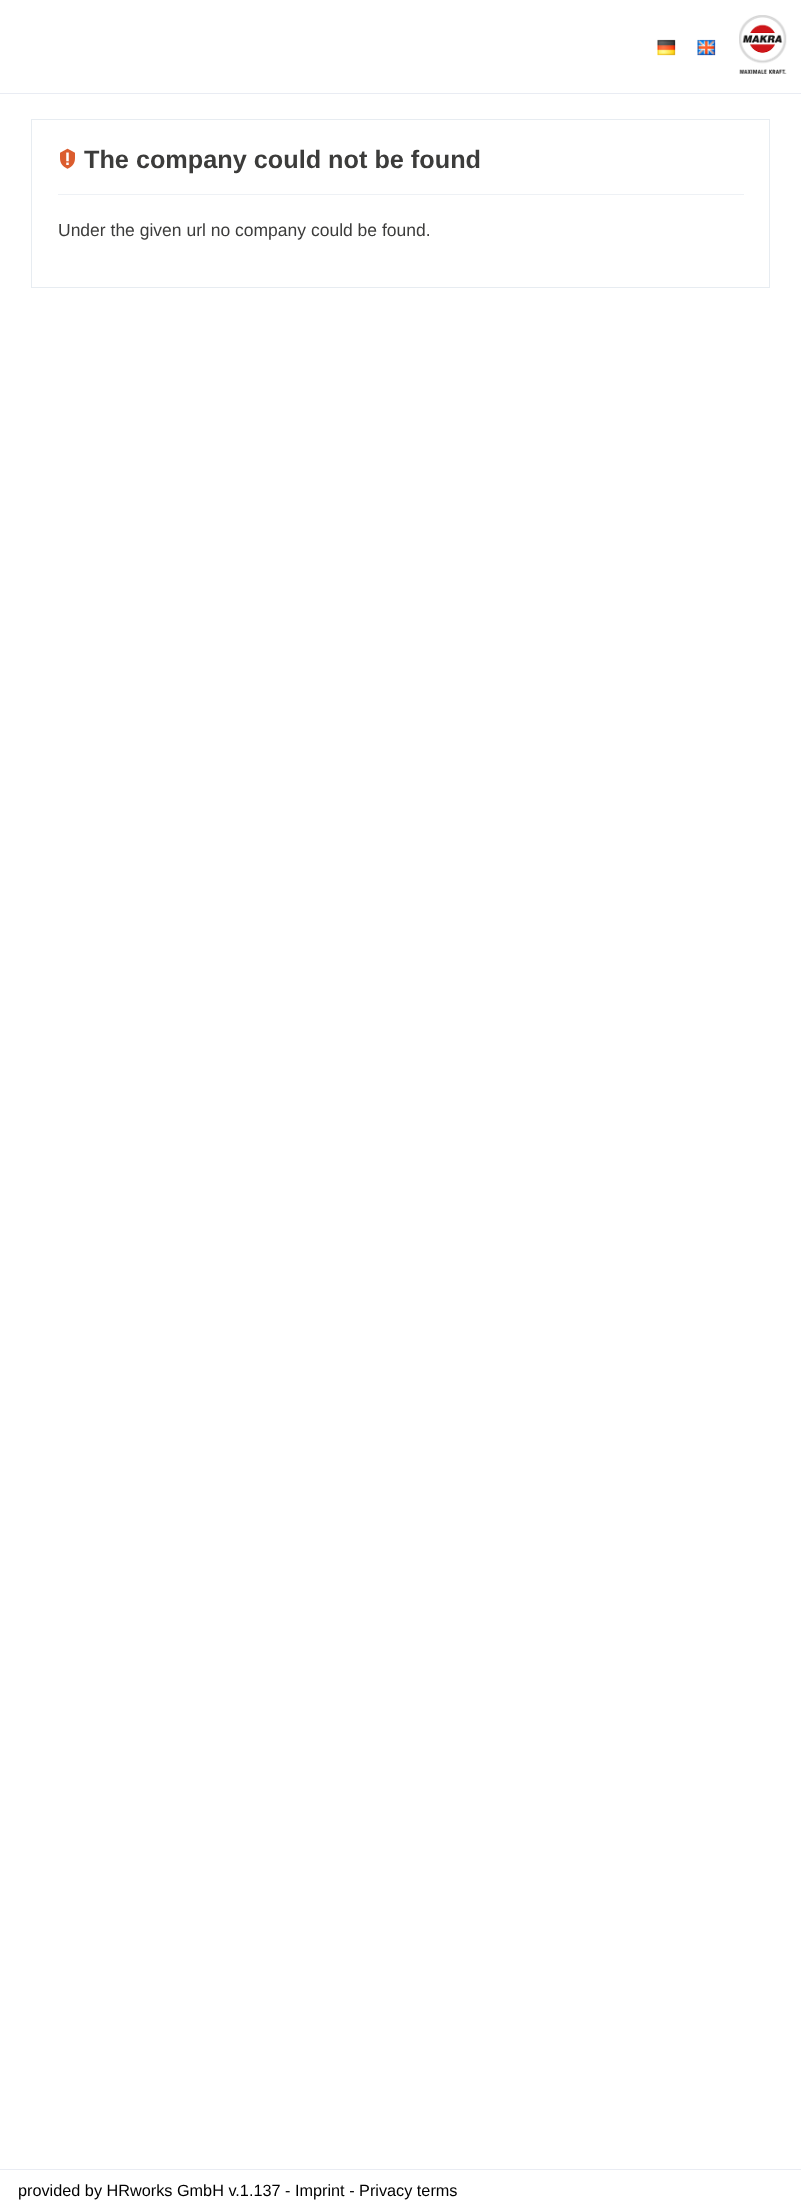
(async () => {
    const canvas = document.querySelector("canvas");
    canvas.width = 801;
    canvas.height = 2209;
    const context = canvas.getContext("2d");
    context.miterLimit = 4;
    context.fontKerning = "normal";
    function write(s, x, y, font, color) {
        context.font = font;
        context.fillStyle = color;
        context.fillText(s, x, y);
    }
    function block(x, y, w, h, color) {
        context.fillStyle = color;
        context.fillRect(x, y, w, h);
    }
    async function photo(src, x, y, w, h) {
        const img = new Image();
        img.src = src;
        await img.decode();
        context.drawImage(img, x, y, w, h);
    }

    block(0, 0, 801, 2209, "rgb(255, 255, 255)");
    block(0, 93, 801, 1, "rgb(233, 236, 243)");
    await photo("media/1.png", 657, 39, 19, 17);
    await photo("media/2.png", 697, 39, 19, 17);
    await photo("media/3.png", 739, 15, 48, 59);
    context.strokeStyle = "rgb(231, 236, 241)";
    context.strokeRect(31.5, 119.5, 738, 168);
    block(58, 194, 686, 1, "rgb(238, 241, 245)");
    await photo("media/4.png", 60, 148, 15, 21);
    write("The company could not be found", 84, 168, "bold 25.25px Liberation Sans", "rgb(60, 60, 59)");
    write("Under the given url no company could be found.", 58, 236, "17.5px Liberation Sans", "rgb(60, 60, 59)");
    block(0, 2169, 801, 1, "rgb(233, 236, 243)");
    write("provided by HRworks GmbH v.1.137 - Imprint - Privacy terms", 18, 2196, "16.25px Liberation Sans", "rgb(0, 0, 0)");
})();
